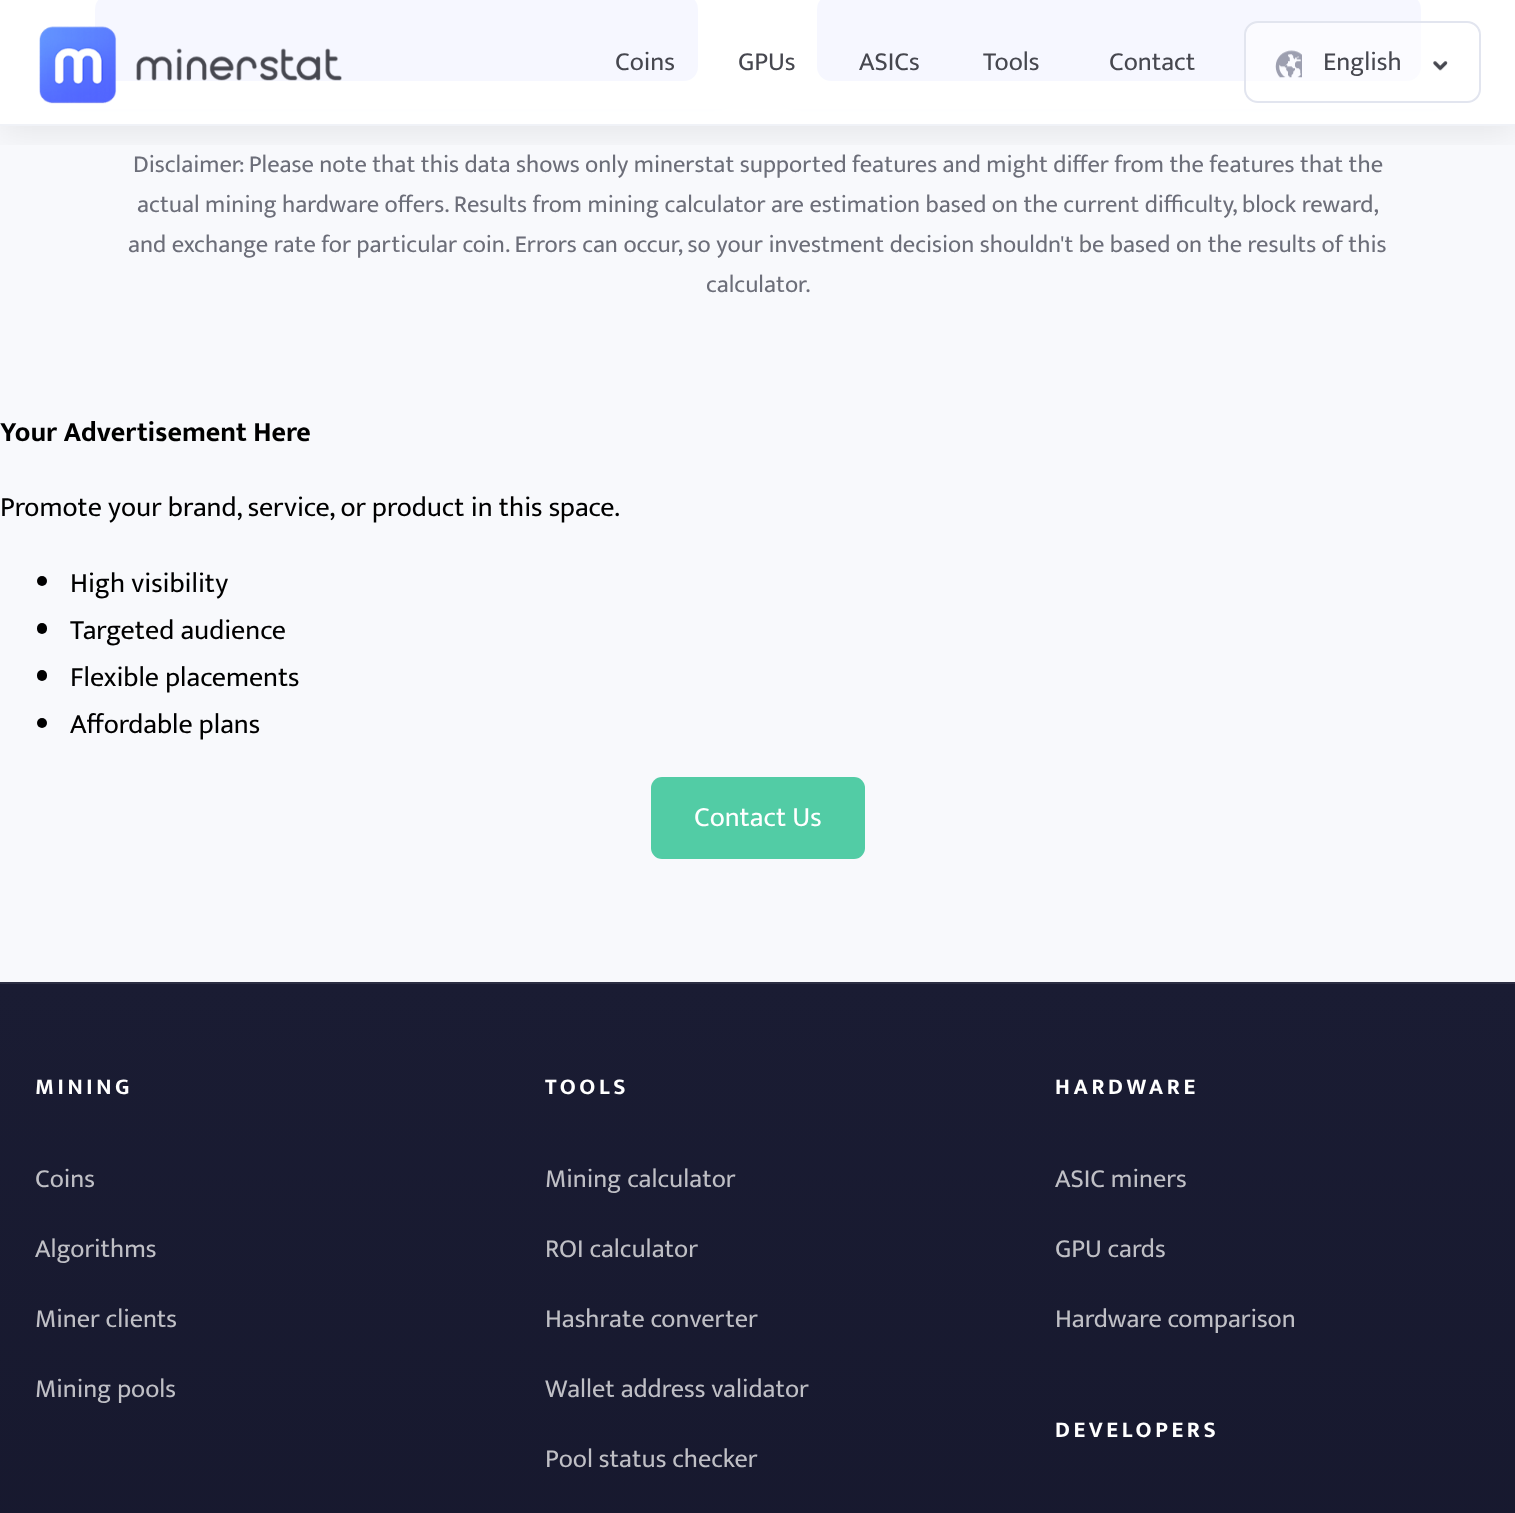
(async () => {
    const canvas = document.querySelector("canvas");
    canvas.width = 1515;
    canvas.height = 1513;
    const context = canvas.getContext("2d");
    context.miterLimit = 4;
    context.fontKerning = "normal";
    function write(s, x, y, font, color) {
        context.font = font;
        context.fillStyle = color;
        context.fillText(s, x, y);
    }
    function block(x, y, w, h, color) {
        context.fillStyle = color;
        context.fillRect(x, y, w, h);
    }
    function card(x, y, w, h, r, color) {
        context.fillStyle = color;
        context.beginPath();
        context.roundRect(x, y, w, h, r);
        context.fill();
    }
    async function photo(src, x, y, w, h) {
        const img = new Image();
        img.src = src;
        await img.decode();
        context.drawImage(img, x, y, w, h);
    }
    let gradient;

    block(0, 0, 1515, 1513, "rgb(248, 249, 252)");
    context.fillStyle = "rgba(0, 0, 0, 0.08)";
    context.filter = "blur(7px)";
    context.beginPath();
    context.roundRect(53, -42, 687, 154, 21);
    context.fill();
    context.filter = "none";
    card(53, -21, 687, 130, 21, "rgb(255, 255, 255)");
    card(95, -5, 603, 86, 14, "rgb(84, 106, 255)");
    context.fillStyle = "rgba(0, 0, 0, 0.08)";
    context.filter = "blur(7px)";
    context.beginPath();
    context.roundRect(775, -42, 688, 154, 21);
    context.fill();
    context.filter = "none";
    card(775, -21, 688, 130, 21, "rgb(255, 255, 255)");
    card(817, -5, 604, 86, 14, "rgb(84, 106, 255)");
    context.save();
    context.beginPath();
    context.rect(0, 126, 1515, 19);
    context.clip();
    context.fillStyle = "rgba(0, 0, 0, 0.08)";
    context.filter = "blur(17.5px)";
    context.beginPath();
    context.rect(0, 7, 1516, 126);
    context.fill();
    context.filter = "none";
    context.restore();
    block(0, 0, 1515, 124, "rgba(255, 255, 255, 0.95)");
    block(0, 124, 1515, 2, "rgb(240, 242, 247)");
    await photo("media/1.png", 39, 26, 303, 78);
    write("Coins", 615, 70, "26.25px Mukta Mahee", "rgb(70, 71, 79)");
    write("GPUs", 738, 70, "26.25px Mukta Mahee", "rgb(70, 71, 79)");
    write("ASICs", 859, 70, "26.25px Mukta Mahee", "rgb(70, 71, 79)");
    write("Tools", 983, 70, "26.25px Mukta Mahee", "rgb(70, 71, 79)");
    write("Contact", 1109, 70, "26.25px Mukta Mahee", "rgb(70, 71, 79)");
    context.fillStyle = "rgba(255, 255, 255, 0.5)";
    context.beginPath();
    context.roundRect(1245, 22, 235, 80, 13);
    context.fill();
    context.strokeStyle = "rgb(226, 229, 239)";
    context.lineWidth = 2;
    context.stroke();
    await photo("media/2.png", 1275, 50, 27, 28);
    write("English", 1323, 70, "26.25px Mukta Mahee", "rgb(70, 71, 79)");
    await photo("media/3.png", 1433, 61, 15, 10);
    write("Disclaimer: Please note that this data shows only minerstat supported features and might differ from the features that the", 133, 172, "24.5px Mukta Mahee", "rgb(108, 110, 121)");
    write("actual mining hardware offers. Results from mining calculator are estimation based on the current difficulty, block reward,", 137, 212, "24.5px Mukta Mahee", "rgb(108, 110, 121)");
    write("and exchange rate for particular coin. Errors can occur, so your investment decision shouldn't be based on the results of this", 128, 252, "24.5px Mukta Mahee", "rgb(108, 110, 121)");
    write("calculator.", 706, 292, "24.5px Mukta Mahee", "rgb(108, 110, 121)");
    write("Your Advertisement Here", 0, 441, "bold 28px Mukta Mahee", "rgb(0, 0, 0)");
    write("Promote your brand, service, or product in this space.", 0, 516, "28px Mukta Mahee", "rgb(0, 0, 0)");
    context.beginPath();
    context.arc(42, 581, 5, 0, Math.PI * 2);
    context.fill();
    write("High visibility", 70, 592, "28px Mukta Mahee", "rgb(0, 0, 0)");
    card(37, 623, 10, 11, 5, "rgb(0, 0, 0)");
    write("Targeted audience", 70, 639, "28px Mukta Mahee", "rgb(0, 0, 0)");
    card(37, 670, 10, 11, 5, "rgb(0, 0, 0)");
    write("Flexible placements", 70, 686, "28px Mukta Mahee", "rgb(0, 0, 0)");
    context.beginPath();
    context.arc(42, 723, 5, 0, Math.PI * 2);
    context.fill();
    write("Affordable plans", 70, 733, "28px Mukta Mahee", "rgb(0, 0, 0)");
    card(651, 777, 214, 82, 11, "rgb(82, 204, 165)");
    write("Contact Us", 694, 826, "28px Mukta Mahee", "rgb(255, 255, 255)");
    gradient = context.createLinearGradient(758, 982, 758, 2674);
    gradient.addColorStop(0, "rgb(26, 28, 51)");
    gradient.addColorStop(1, "rgb(17, 18, 37)");
    context.fillStyle = gradient;
    context.fillRect(0, 984, 1515, 529);
    block(0, 982, 1515, 2, "rgb(44, 46, 67)");
    context.letterSpacing = "3.6px";
    write("MINING", 35, 1094, "bold 22.75px Mukta Mahee", "rgb(255, 255, 255)");
    context.letterSpacing = "0px";
    write("Coins", 35, 1187, "26.25px Mukta Mahee", "rgb(191, 191, 197)");
    write("Algorithms", 35, 1257, "26.25px Mukta Mahee", "rgb(191, 191, 197)");
    write("Miner clients", 35, 1327, "26.25px Mukta Mahee", "rgb(191, 191, 197)");
    write("Mining pools", 35, 1397, "26.25px Mukta Mahee", "rgb(191, 191, 197)");
    context.letterSpacing = "3.6px";
    write("TOOLS", 545, 1094, "bold 22.75px Mukta Mahee", "rgb(255, 255, 255)");
    context.letterSpacing = "0px";
    write("Mining calculator", 545, 1187, "26.25px Mukta Mahee", "rgb(191, 191, 197)");
    write("ROI calculator", 545, 1257, "26.25px Mukta Mahee", "rgb(191, 191, 197)");
    write("Hashrate converter", 545, 1327, "26.25px Mukta Mahee", "rgb(191, 191, 197)");
    write("Wallet address validator", 545, 1397, "26.25px Mukta Mahee", "rgb(191, 191, 197)");
    write("Pool status checker", 545, 1467, "26.25px Mukta Mahee", "rgb(191, 191, 197)");
    context.letterSpacing = "3.6px";
    write("HARDWARE", 1055, 1094, "bold 22.75px Mukta Mahee", "rgb(255, 255, 255)");
    context.letterSpacing = "0px";
    write("ASIC miners", 1055, 1187, "26.25px Mukta Mahee", "rgb(191, 191, 197)");
    write("GPU cards", 1055, 1257, "26.25px Mukta Mahee", "rgb(191, 191, 197)");
    write("Hardware comparison", 1055, 1327, "26.25px Mukta Mahee", "rgb(191, 191, 197)");
    context.letterSpacing = "3.6px";
    write("DEVELOPERS", 1055, 1437, "bold 22.75px Mukta Mahee", "rgb(255, 255, 255)");
})();
